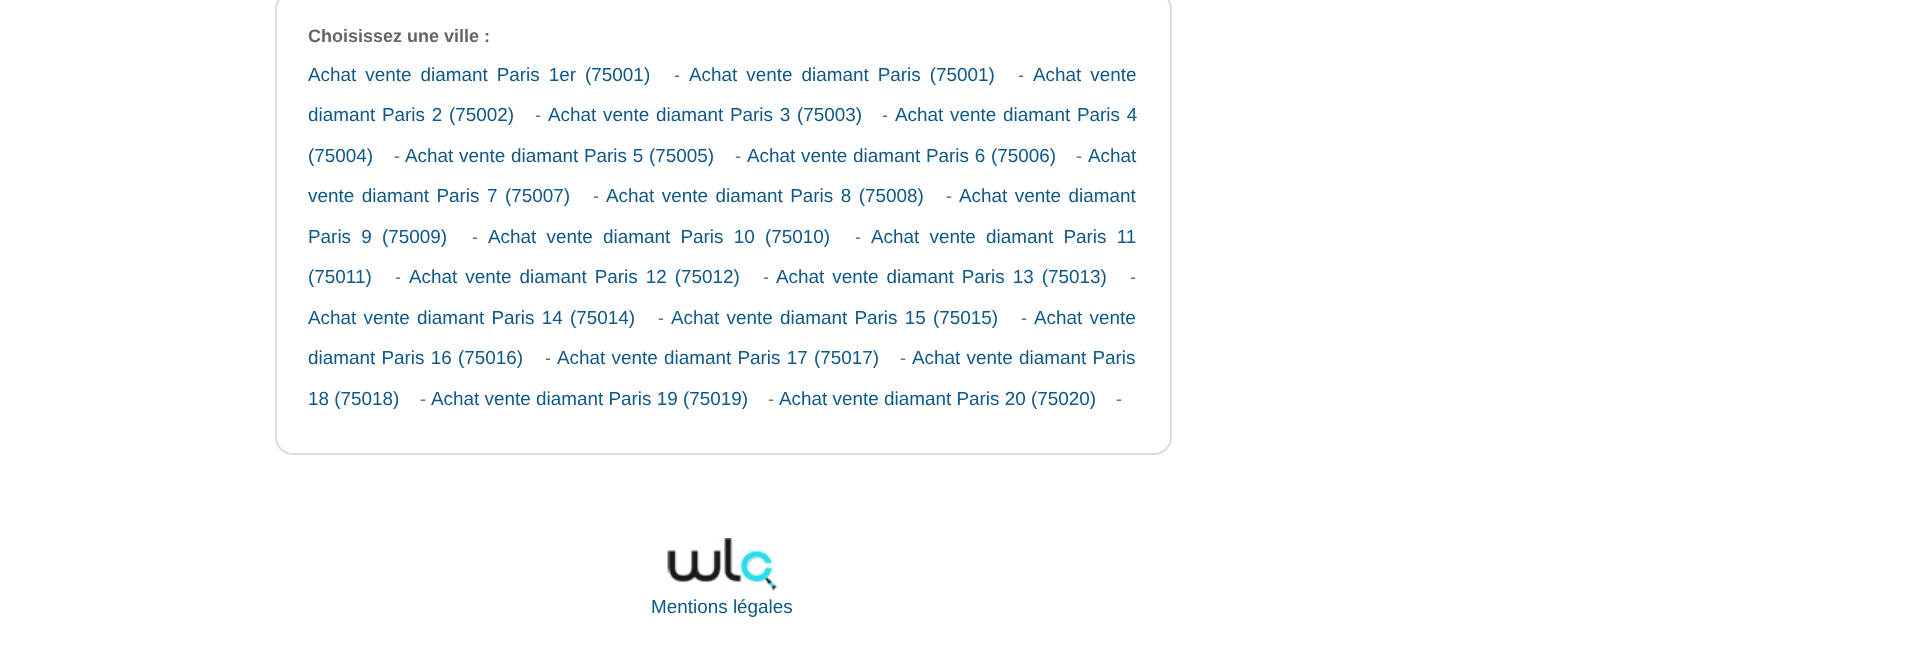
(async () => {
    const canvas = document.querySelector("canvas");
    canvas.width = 1927;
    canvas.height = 672;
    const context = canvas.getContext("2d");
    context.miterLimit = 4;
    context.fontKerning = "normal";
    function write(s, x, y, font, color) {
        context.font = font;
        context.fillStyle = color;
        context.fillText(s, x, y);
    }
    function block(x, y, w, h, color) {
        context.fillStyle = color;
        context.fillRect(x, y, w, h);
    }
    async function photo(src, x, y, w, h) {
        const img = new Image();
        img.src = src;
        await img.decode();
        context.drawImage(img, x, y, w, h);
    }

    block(0, 0, 1927, 672, "rgb(255, 255, 255)");
    context.beginPath();
    context.roundRect(276, -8, 895, 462, 17);
    context.strokeStyle = "rgb(220, 220, 220)";
    context.lineWidth = 2;
    context.stroke();
    write("Choisissez une ville :", 308, 42, "bold 18px Liberation Sans", "rgb(102, 102, 102)");
    context.wordSpacing = "3.75px";
    write("Achat vente diamant Paris 1er (75001)", 308, 81, "18.9px Liberation Sans", "rgb(16, 88, 136)");
    context.wordSpacing = "0px";
    write("-", 674, 81, "18px Liberation Sans", "rgb(102, 102, 102)");
    context.wordSpacing = "3.75px";
    write("Achat vente diamant Paris (75001)", 689, 81, "18.9px Liberation Sans", "rgb(16, 88, 136)");
    context.wordSpacing = "0px";
    write("-", 1018, 81, "18px Liberation Sans", "rgb(102, 102, 102)");
    context.wordSpacing = "3.75px";
    write("Achat vente", 1033, 81, "18.9px Liberation Sans", "rgb(16, 88, 136)");
    context.wordSpacing = "1.5px";
    write("diamant Paris 2 (75002)", 308, 121, "18.9px Liberation Sans", "rgb(16, 88, 136)");
    context.wordSpacing = "0px";
    write("-", 535, 121, "18px Liberation Sans", "rgb(102, 102, 102)");
    context.wordSpacing = "1.5px";
    write("Achat vente diamant Paris 3 (75003)", 548, 121, "18.9px Liberation Sans", "rgb(16, 88, 136)");
    context.wordSpacing = "0px";
    write("-", 882, 121, "18px Liberation Sans", "rgb(102, 102, 102)");
    context.wordSpacing = "1.5px";
    write("Achat vente diamant Paris 4", 895, 121, "18.9px Liberation Sans", "rgb(16, 88, 136)");
    context.wordSpacing = "0px";
    write("(75004)", 308, 162, "18.9px Liberation Sans", "rgb(16, 88, 136)");
    write("-", 394, 162, "18px Liberation Sans", "rgb(102, 102, 102)");
    context.wordSpacing = "0.5px";
    write("Achat vente diamant Paris 5 (75005)", 405, 162, "18.9px Liberation Sans", "rgb(16, 88, 136)");
    context.wordSpacing = "0px";
    write("-", 735, 162, "18px Liberation Sans", "rgb(102, 102, 102)");
    context.wordSpacing = "0.5px";
    write("Achat vente diamant Paris 6 (75006)", 747, 162, "18.9px Liberation Sans", "rgb(16, 88, 136)");
    context.wordSpacing = "0px";
    write("-", 1076, 162, "18px Liberation Sans", "rgb(102, 102, 102)");
    write("Achat", 1088, 162, "18.9px Liberation Sans", "rgb(16, 88, 136)");
    context.wordSpacing = "2.25px";
    write("vente diamant Paris 7 (75007)", 308, 202, "18.9px Liberation Sans", "rgb(16, 88, 136)");
    context.wordSpacing = "0px";
    write("-", 593, 202, "18px Liberation Sans", "rgb(102, 102, 102)");
    context.wordSpacing = "2.25px";
    write("Achat vente diamant Paris 8 (75008)", 606, 202, "18.9px Liberation Sans", "rgb(16, 88, 136)");
    context.wordSpacing = "0px";
    write("-", 946, 202, "18px Liberation Sans", "rgb(102, 102, 102)");
    context.wordSpacing = "2.25px";
    write("Achat vente diamant", 959, 202, "18.9px Liberation Sans", "rgb(16, 88, 136)");
    context.wordSpacing = "5px";
    write("Paris 9 (75009)", 308, 243, "18.9px Liberation Sans", "rgb(16, 88, 136)");
    context.wordSpacing = "0px";
    write("-", 472, 243, "18px Liberation Sans", "rgb(102, 102, 102)");
    context.wordSpacing = "5px";
    write("Achat vente diamant Paris 10 (75010)", 488, 243, "18.9px Liberation Sans", "rgb(16, 88, 136)");
    context.wordSpacing = "0px";
    write("-", 855, 243, "18px Liberation Sans", "rgb(102, 102, 102)");
    context.wordSpacing = "5px";
    write("Achat vente diamant Paris 11", 871, 243, "18.9px Liberation Sans", "rgb(16, 88, 136)");
    context.wordSpacing = "0px";
    write("(75011)", 308, 283, "18.9px Liberation Sans", "rgb(16, 88, 136)");
    write("-", 395, 283, "18px Liberation Sans", "rgb(102, 102, 102)");
    context.wordSpacing = "2.75px";
    write("Achat vente diamant Paris 12 (75012)", 409, 283, "18.9px Liberation Sans", "rgb(16, 88, 136)");
    context.wordSpacing = "0px";
    write("-", 763, 283, "18px Liberation Sans", "rgb(102, 102, 102)");
    context.wordSpacing = "2.75px";
    write("Achat vente diamant Paris 13 (75013)", 776, 283, "18.9px Liberation Sans", "rgb(16, 88, 136)");
    context.wordSpacing = "0px";
    write("-", 1130, 283, "18px Liberation Sans", "rgb(102, 102, 102)");
    context.wordSpacing = "2px";
    write("Achat vente diamant Paris 14 (75014)", 308, 324, "18.9px Liberation Sans", "rgb(16, 88, 136)");
    context.wordSpacing = "0px";
    write("-", 658, 324, "18px Liberation Sans", "rgb(102, 102, 102)");
    context.wordSpacing = "2px";
    write("Achat vente diamant Paris 15 (75015)", 671, 324, "18.9px Liberation Sans", "rgb(16, 88, 136)");
    context.wordSpacing = "0px";
    write("-", 1021, 324, "18px Liberation Sans", "rgb(102, 102, 102)");
    context.wordSpacing = "2px";
    write("Achat vente", 1034, 324, "18.9px Liberation Sans", "rgb(16, 88, 136)");
    context.wordSpacing = "1px";
    write("diamant Paris 16 (75016)", 308, 364, "18.9px Liberation Sans", "rgb(16, 88, 136)");
    context.wordSpacing = "0px";
    write("-", 545, 364, "18px Liberation Sans", "rgb(102, 102, 102)");
    context.wordSpacing = "1px";
    write("Achat vente diamant Paris 17 (75017)", 557, 364, "18.9px Liberation Sans", "rgb(16, 88, 136)");
    context.wordSpacing = "0px";
    write("-", 900, 364, "18px Liberation Sans", "rgb(102, 102, 102)");
    context.wordSpacing = "1px";
    write("Achat vente diamant Paris", 912, 364, "18.9px Liberation Sans", "rgb(16, 88, 136)");
    context.wordSpacing = "0px";
    write("18 (75018)", 308, 405, "18.9px Liberation Sans", "rgb(16, 88, 136)");
    write("-", 420, 405, "18px Liberation Sans", "rgb(102, 102, 102)");
    write("Achat vente diamant Paris 19 (75019)", 431, 405, "18.9px Liberation Sans", "rgb(16, 88, 136)");
    write("-", 768, 405, "18px Liberation Sans", "rgb(102, 102, 102)");
    write("Achat vente diamant Paris 20 (75020)", 779, 405, "18.9px Liberation Sans", "rgb(16, 88, 136)");
    write("-", 1116, 405, "18px Liberation Sans", "rgb(102, 102, 102)");
    await photo("media/1.png", 667, 538, 111, 53);
    write("Mentions légales", 651, 613, "18.9px Liberation Sans", "rgb(16, 88, 136)");
})();
